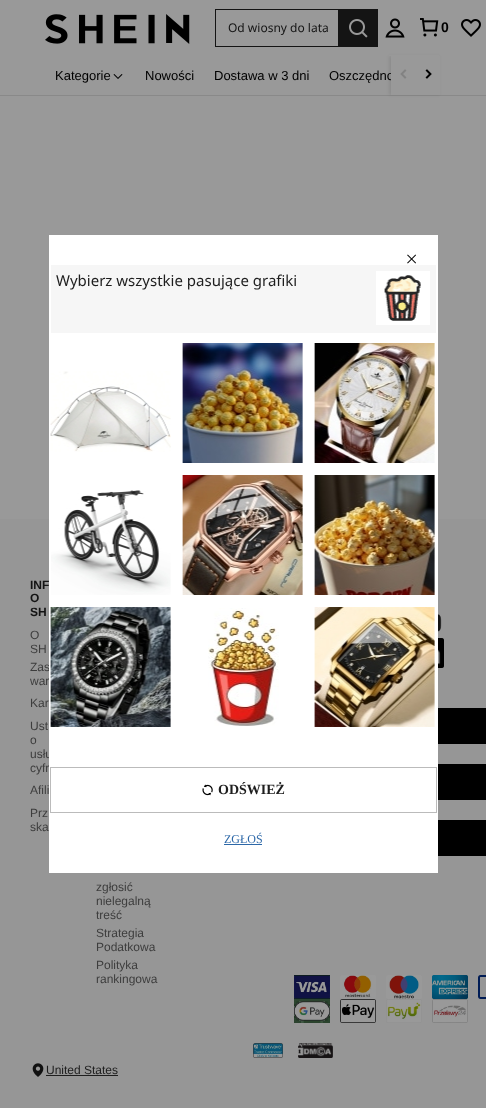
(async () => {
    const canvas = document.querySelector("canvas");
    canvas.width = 486;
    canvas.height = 1108;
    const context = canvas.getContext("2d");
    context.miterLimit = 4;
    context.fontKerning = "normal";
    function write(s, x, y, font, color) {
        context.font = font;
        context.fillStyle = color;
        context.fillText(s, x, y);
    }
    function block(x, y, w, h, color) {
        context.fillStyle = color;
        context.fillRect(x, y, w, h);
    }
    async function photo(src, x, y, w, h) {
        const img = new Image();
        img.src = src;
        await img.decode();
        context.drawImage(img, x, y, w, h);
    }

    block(0, 0, 486, 1108, "rgb(153, 153, 153)");
    block(0, 95, 486, 1, "rgb(137, 137, 137)");
    context.fillStyle = "rgba(0, 0, 0, 0.08)";
    context.filter = "blur(1.5px)";
    context.beginPath();
    context.rect(389, 56, 50, 39);
    context.fill();
    context.filter = "none";
    block(389, 55, 50, 1, "rgb(153, 153, 153)");
    await photo("media/1.png", 45, 14, 145, 30);
    block(215, 9, 123, 1, "rgb(20, 20, 20)");
    block(215, 46, 123, 1, "rgb(20, 20, 20)");
    block(215, 9, 1, 38, "rgb(20, 20, 20)");
    write("Od wiosny do lata", 228, 32, "12px Noto Sans", "rgb(20, 20, 20)");
    block(338, 9, 40, 38, "rgb(20, 20, 20)");
    await photo("media/2.png", 349, 19, 19, 19);
    await photo("media/3.png", 385, 18, 20, 20);
    await photo("media/4.png", 420, 18, 19, 19);
    write("0", 441, 32, "bold 14px Liberation Sans", "rgb(0, 0, 0)");
    await photo("media/5.png", 461, 19, 20, 18);
    write("Kategorie", 55, 80, "13px Liberation Sans", "rgb(0, 0, 0)");
    await photo("media/6.png", 113, 74, 10, 5);
    write("Nowości", 145, 80, "13px Liberation Sans", "rgb(0, 0, 0)");
    write("Dostawa w 3 dni", 214, 80, "13px Liberation Sans", "rgb(0, 0, 0)");
    write("Oszczędno", 329, 80, "13px Liberation Sans", "rgb(0, 0, 0)");
    block(391, 56, 49, 39, "rgb(153, 153, 153)");
    await photo("media/7.png", 400, 69, 7, 10);
    await photo("media/8.png", 425, 69, 7, 10);
    block(0, 519, 486, 589, "rgb(150, 150, 150)");
    write("INF", 30, 589, "bold 12px Liberation Sans", "rgb(20, 20, 20)");
    write("O", 30, 602, "bold 12px Liberation Sans", "rgb(20, 20, 20)");
    write("SH", 30, 616, "bold 12px Liberation Sans", "rgb(20, 20, 20)");
    write("O", 30, 639, "12px Liberation Sans", "rgb(61, 61, 61)");
    write("SH", 30, 653, "12px Liberation Sans", "rgb(61, 61, 61)");
    write("Zas", 30, 671, "12px Liberation Sans", "rgb(61, 61, 61)");
    write("war", 30, 685, "12px Liberation Sans", "rgb(61, 61, 61)");
    write("Kar", 30, 707, "12px Liberation Sans", "rgb(61, 61, 61)");
    write("Ust", 30, 730, "12px Liberation Sans", "rgb(61, 61, 61)");
    write("o", 30, 744, "12px Liberation Sans", "rgb(61, 61, 61)");
    write("usłu", 30, 758, "12px Liberation Sans", "rgb(61, 61, 61)");
    write("cyfr", 30, 772, "12px Liberation Sans", "rgb(61, 61, 61)");
    write("Afili", 30, 794, "12px Liberation Sans", "rgb(61, 61, 61)");
    write("Prz", 30, 817, "12px Liberation Sans", "rgb(61, 61, 61)");
    write("ska", 30, 831, "12px Liberation Sans", "rgb(61, 61, 61)");
    write("zgłosić", 96, 891, "12px Liberation Sans", "rgb(61, 61, 61)");
    write("nielegalną", 96, 905, "12px Liberation Sans", "rgb(61, 61, 61)");
    write("treść", 96, 919, "12px Liberation Sans", "rgb(61, 61, 61)");
    write("Strategia", 96, 937, "12px Liberation Sans", "rgb(61, 61, 61)");
    write("Podatkowa", 96, 951, "12px Liberation Sans", "rgb(61, 61, 61)");
    write("Polityka", 96, 969, "12px Liberation Sans", "rgb(61, 61, 61)");
    write("rankingowa", 96, 983, "12px Liberation Sans", "rgb(61, 61, 61)");
    await photo("media/9.png", 438, 614, 4, 18);
    await photo("media/10.png", 438, 638, 6, 30);
    block(438, 708, 48, 36, "rgb(0, 0, 0)");
    block(438, 764, 48, 36, "rgb(0, 0, 0)");
    block(438, 820, 48, 36, "rgb(0, 0, 0)");
    await photo("media/11.png", 294, 975, 36, 24);
    await photo("media/12.png", 340, 975, 36, 24);
    await photo("media/13.png", 386, 975, 36, 24);
    await photo("media/14.png", 432, 975, 36, 24);
    await photo("media/15.png", 478, 975, 8, 24);
    await photo("media/16.png", 294, 999, 36, 24);
    await photo("media/17.png", 340, 999, 36, 24);
    await photo("media/18.png", 386, 999, 36, 24);
    await photo("media/19.png", 432, 999, 36, 24);
    await photo("media/20.png", 253, 1043, 30, 15);
    await photo("media/21.png", 298, 1043, 35, 15);
    await photo("media/22.png", 32, 1063, 12, 14);
    write("United States", 46, 1074, "12px Liberation Sans", "rgb(30, 30, 30)");
    block(46, 1075, 72, 1, "rgb(30, 30, 30)");
    context.fillStyle = "rgba(0, 0, 0, 0.3)";
    context.filter = "blur(0.5px)";
    context.beginPath();
    context.rect(49, 235, 389, 638);
    context.fill();
    context.filter = "none";
    block(49, 235, 389, 638, "rgb(255, 255, 255)");
    await photo("media/23.png", 407, 254, 9, 10);
    block(51, 265, 385, 68, "rgb(246, 246, 246)");
    write("Wybierz wszystkie pasujące grafiki", 56, 286, "15px Noto Sans", "rgb(30, 30, 30)");
    block(376, 271, 54, 54, "rgb(255, 255, 255)");
    await photo("media/24.png", 384, 275, 37, 46);
    await photo("media/25.png", 50, 371, 121, 81);
    await photo("media/26.png", 182, 343, 121, 120);
    await photo("media/27.png", 314, 343, 121, 120);
    await photo("media/28.png", 51, 490, 120, 105);
    await photo("media/29.png", 182, 475, 121, 120);
    await photo("media/30.png", 314, 475, 121, 120);
    await photo("media/31.png", 50, 607, 121, 120);
    await photo("media/32.png", 208, 608, 71, 118);
    await photo("media/33.png", 314, 607, 121, 120);
    context.strokeStyle = "rgb(187, 187, 187)";
    context.strokeRect(50.5, 767.5, 386, 45);
    await photo("media/34.png", 202, 784, 11, 12);
    write("ODŚWIEŻ", 218, 794, "bold 14px Liberation Serif", "rgb(30, 30, 30)");
    write("ZGŁOŚ", 224, 843, "12px Liberation Serif", "rgb(45, 104, 168)");
    block(224, 844, 38, 1, "rgb(45, 104, 168)");
})();
